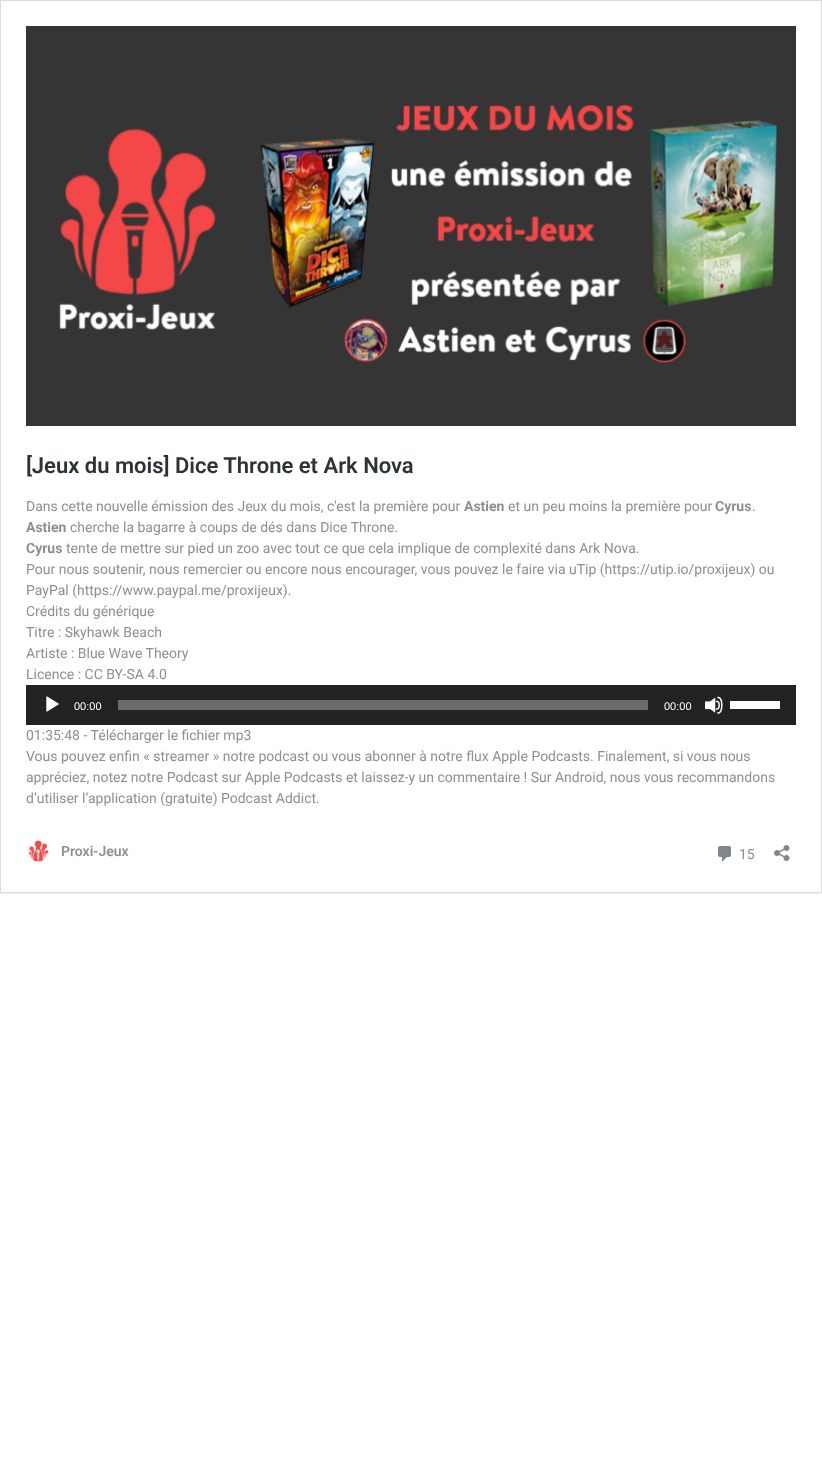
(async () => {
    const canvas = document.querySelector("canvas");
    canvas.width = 822;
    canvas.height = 1463;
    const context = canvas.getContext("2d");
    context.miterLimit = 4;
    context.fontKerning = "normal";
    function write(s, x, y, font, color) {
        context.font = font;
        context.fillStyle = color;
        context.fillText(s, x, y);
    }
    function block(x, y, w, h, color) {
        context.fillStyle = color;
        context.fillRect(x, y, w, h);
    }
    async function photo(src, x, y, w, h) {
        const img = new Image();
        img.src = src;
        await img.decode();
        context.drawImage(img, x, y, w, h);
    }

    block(0, 0, 822, 1463, "rgb(255, 255, 255)");
    context.save();
    context.beginPath();
    context.rect(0, 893, 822, 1);
    context.clip();
    context.fillStyle = "rgba(0, 0, 0, 0.05)";
    context.filter = "blur(0.5px)";
    context.beginPath();
    context.rect(0, 1, 822, 893);
    context.fill();
    context.filter = "none";
    context.restore();
    context.strokeStyle = "rgb(220, 220, 222)";
    context.strokeRect(0.5, 0.5, 821, 892);
    await photo("media/1.png", 26, 26, 770, 400);
    write("[Jeux du mois] Dice Throne et Ark Nova", 26, 473, "600 22px Roboto", "rgb(44, 51, 56)");
    write("Dans cette nouvelle émission des Jeux du mois, c'est la première pour", 26, 511, "14px Roboto", "rgb(140, 143, 148)");
    write("Astien", 464, 511, "bold 14px Roboto", "rgb(140, 143, 148)");
    write("et un peu moins la première pour", 508, 511, "14px Roboto", "rgb(140, 143, 148)");
    write("Cyrus", 715, 511, "bold 14px Roboto", "rgb(140, 143, 148)");
    write(".", 752, 511, "14px Roboto", "rgb(140, 143, 148)");
    write("Astien", 26, 532, "bold 14px Roboto", "rgb(140, 143, 148)");
    write("cherche la bagarre à coups de dés dans Dice Throne.", 70, 532, "14px Roboto", "rgb(140, 143, 148)");
    write("Cyrus", 26, 553, "bold 14px Roboto", "rgb(140, 143, 148)");
    write("tente de mettre sur pied un zoo avec tout ce que cela implique de complexité dans Ark Nova.", 66, 553, "14px Roboto", "rgb(140, 143, 148)");
    write("Pour nous soutenir, nous remercier ou encore nous encourager, vous pouvez le faire via uTip (https://utip.io/proxijeux) ou", 26, 574, "14px Roboto", "rgb(140, 143, 148)");
    write("PayPal (https://www.paypal.me/proxijeux).", 26, 595, "14px Roboto", "rgb(140, 143, 148)");
    write("Crédits du générique", 26, 616, "14px Roboto", "rgb(140, 143, 148)");
    write("Titre : Skyhawk Beach", 26, 637, "14px Roboto", "rgb(140, 143, 148)");
    write("Artiste : Blue Wave Theory", 26, 658, "14px Roboto", "rgb(140, 143, 148)");
    write("Licence : CC BY-SA 4.0", 26, 679, "14px Roboto", "rgb(140, 143, 148)");
    block(26, 685, 770, 40, "rgb(34, 34, 34)");
    await photo("media/2.png", 46, 696, 13, 16);
    write("00:00", 74, 710, "11px Liberation Sans", "rgb(255, 255, 255)");
    block(118, 700, 530, 10, "rgb(107, 107, 107)");
    write("00:00", 664, 710, "11px Liberation Sans", "rgb(255, 255, 255)");
    await photo("media/3.png", 705, 696, 18, 18);
    block(730, 701, 50, 8, "rgb(255, 255, 255)");
    write("01:35:48 - Télécharger le fichier mp3", 26, 740, "14px Roboto", "rgb(140, 143, 148)");
    write("Vous pouvez enfin « streamer » notre podcast ou vous abonner à notre flux Apple Podcasts. Finalement, si vous nous", 26, 761, "14px Roboto", "rgb(140, 143, 148)");
    write("appréciez, notez notre Podcast sur Apple Podcasts et laissez-y un commentaire ! Sur Android, nous vous recommandons", 26, 782, "14px Roboto", "rgb(140, 143, 148)");
    write("d’utiliser l’application (gratuite) Podcast Addict.", 26, 803, "14px Roboto", "rgb(140, 143, 148)");
    await photo("media/4.png", 28, 840, 21, 22);
    write("Proxi-Jeux", 61, 856, "600 14px Roboto", "rgb(140, 143, 148)");
    await photo("media/5.png", 718, 846, 13, 16);
    write("15", 739, 859, "14px Roboto", "rgb(140, 143, 148)");
    await photo("media/6.png", 774, 845, 16, 16);
})();
